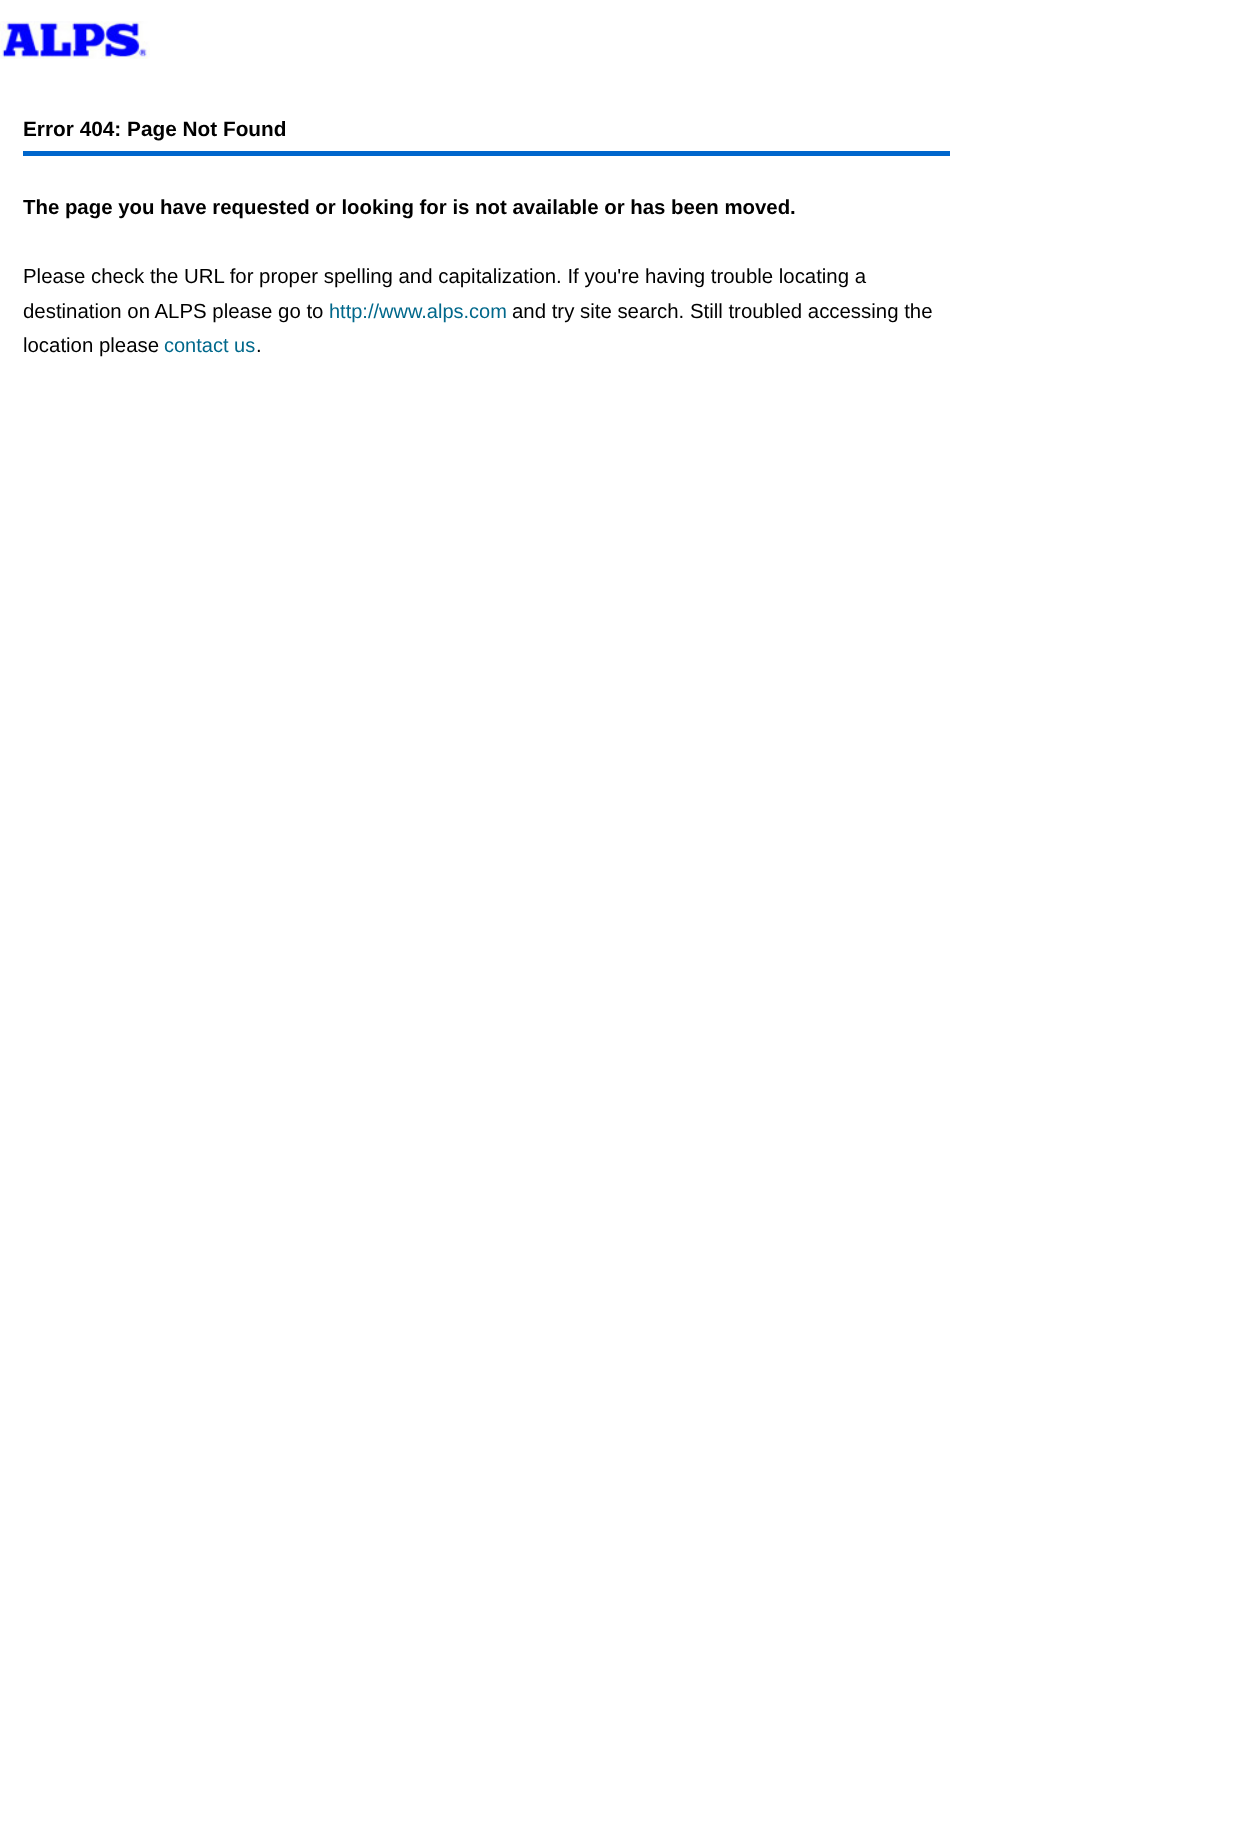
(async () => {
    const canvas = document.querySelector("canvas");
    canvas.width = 1259;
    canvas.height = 1831;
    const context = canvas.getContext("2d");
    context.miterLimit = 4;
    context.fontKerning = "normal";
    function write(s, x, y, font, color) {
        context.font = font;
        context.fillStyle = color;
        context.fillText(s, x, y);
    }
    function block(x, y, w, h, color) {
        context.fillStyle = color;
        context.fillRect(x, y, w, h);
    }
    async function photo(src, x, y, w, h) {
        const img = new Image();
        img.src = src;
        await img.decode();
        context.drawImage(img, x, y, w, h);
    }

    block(0, 0, 1259, 1831, "rgb(255, 255, 255)");
    await photo("media/1.png", 0, 21, 150, 38);
    block(23, 151, 927, 5, "rgb(0, 102, 204)");
    write("Error 404: Page Not Found", 23, 136, "bold 20.8px Liberation Sans", "rgb(0, 0, 0)");
    write("The page you have requested or looking for is not available or has been moved.", 23, 214, "bold 20.4px Liberation Sans", "rgb(0, 0, 0)");
    write("Please check the URL for proper spelling and capitalization. If you're having trouble locating a", 23, 283, "20.4px Liberation Sans", "rgb(0, 0, 0)");
    write("destination on ALPS please go to", 23, 318, "20.4px Liberation Sans", "rgb(0, 0, 0)");
    write("http://www.alps.com", 329, 318, "20px Liberation Sans", "rgb(0, 104, 139)");
    write("and try site search. Still troubled accessing the", 512, 318, "20.4px Liberation Sans", "rgb(0, 0, 0)");
    write("location please", 23, 352, "20.4px Liberation Sans", "rgb(0, 0, 0)");
    write("contact us", 164, 352, "20px Liberation Sans", "rgb(0, 104, 139)");
    write(".", 256, 352, "20.4px Liberation Sans", "rgb(0, 0, 0)");
})();
